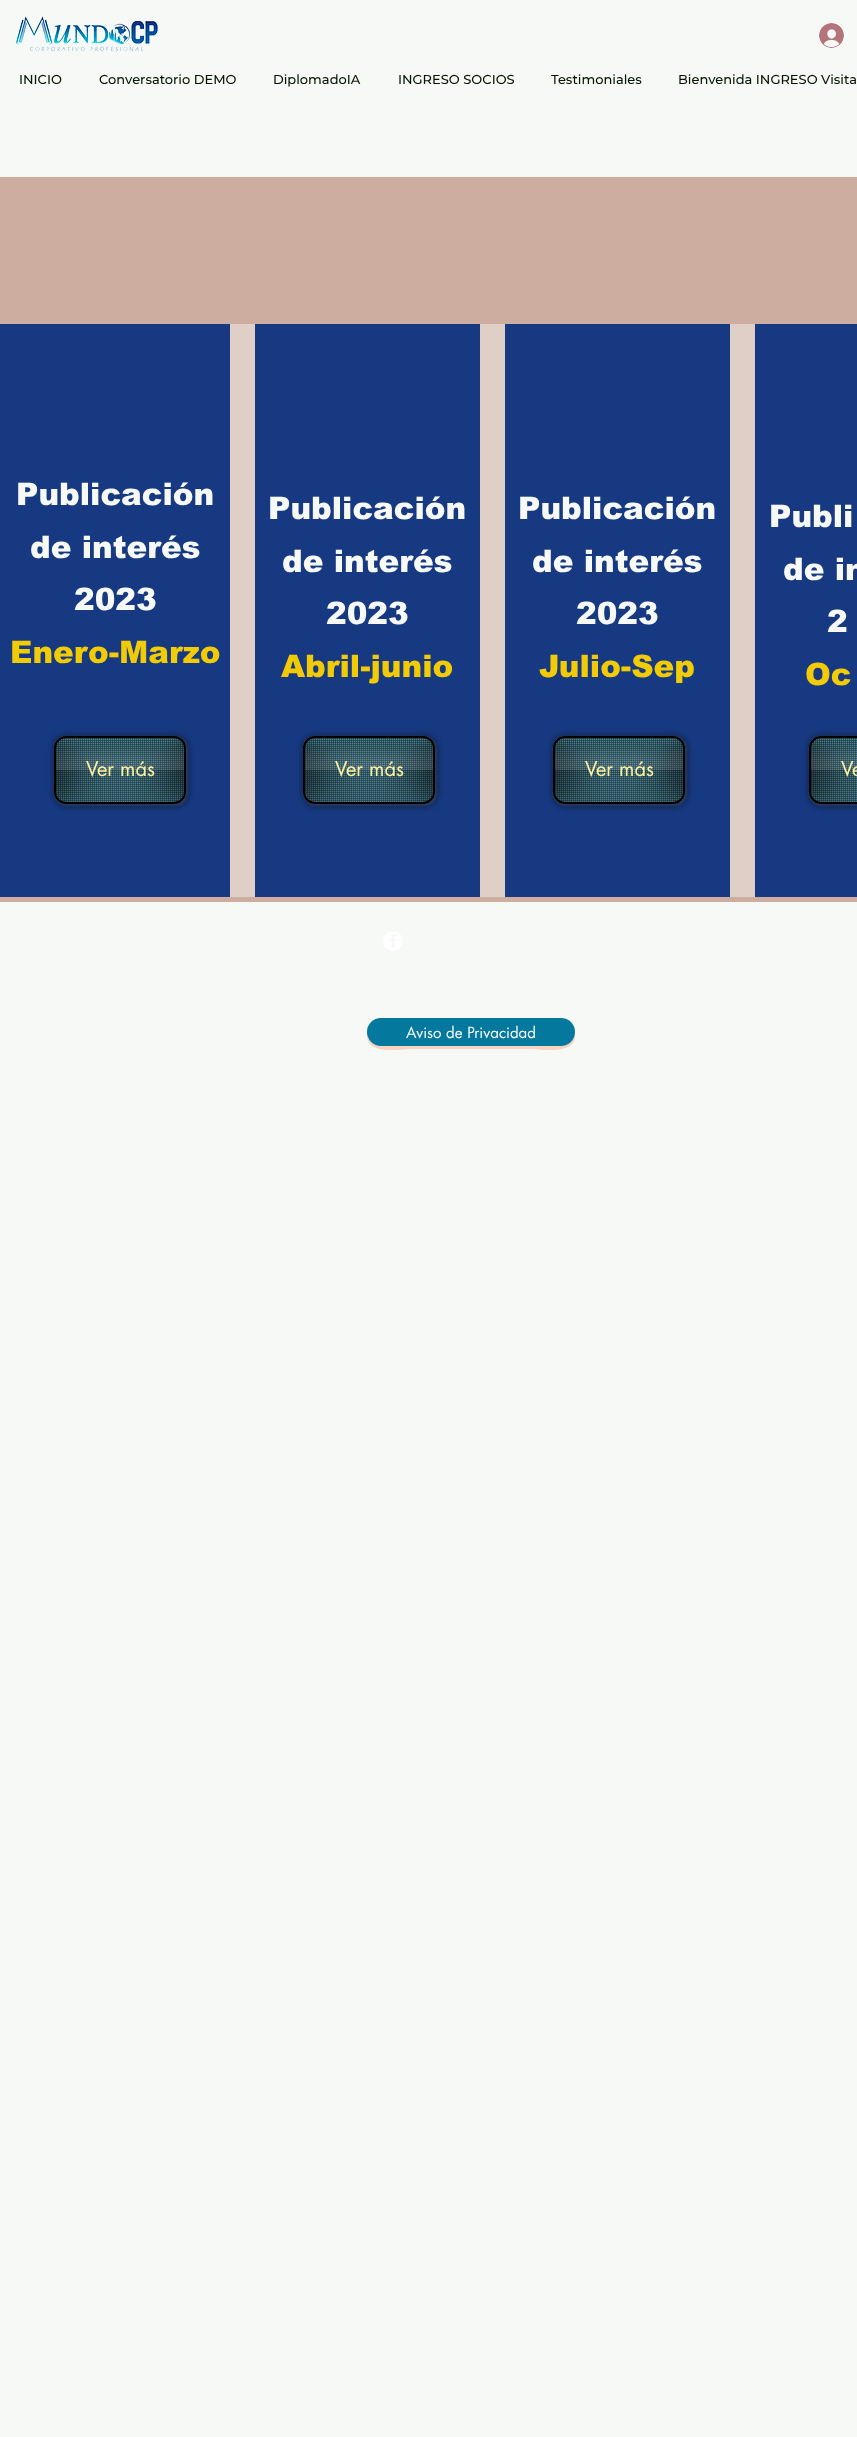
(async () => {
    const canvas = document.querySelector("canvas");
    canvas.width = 857;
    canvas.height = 2437;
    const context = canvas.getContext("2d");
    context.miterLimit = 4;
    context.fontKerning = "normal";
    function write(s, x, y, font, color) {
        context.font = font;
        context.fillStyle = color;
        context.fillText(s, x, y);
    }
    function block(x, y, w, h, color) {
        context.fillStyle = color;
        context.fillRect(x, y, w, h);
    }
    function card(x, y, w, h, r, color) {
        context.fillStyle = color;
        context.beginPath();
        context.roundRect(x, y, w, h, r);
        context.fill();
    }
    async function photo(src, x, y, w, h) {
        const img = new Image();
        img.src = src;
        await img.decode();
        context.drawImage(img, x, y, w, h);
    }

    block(0, 0, 857, 2437, "rgb(246, 249, 245)");
    await photo("media/1.png", 15, 16, 143, 36);
    await photo("media/2.png", 819, 23, 25, 25);
    write("INICIO", 19, 84, "500 13px Montserrat", "rgb(9, 20, 5)");
    write("Conversatorio DEMO", 99, 84, "500 13px Montserrat", "rgb(9, 20, 5)");
    write("DiplomadoIA", 273, 84, "500 13px Montserrat", "rgb(9, 20, 5)");
    write("INGRESO SOCIOS", 398, 84, "500 13px Montserrat", "rgb(9, 20, 5)");
    write("Testimoniales", 551, 84, "500 13px Montserrat", "rgb(9, 20, 5)");
    write("Bienvenida INGRESO Visita", 678, 84, "500 13px Montserrat", "rgb(9, 20, 5)");
    block(0, 177, 857, 725, "rgb(204, 173, 159)");
    block(230, 324, 525, 573, "rgb(224, 207, 198)");
    block(0, 324, 230, 573, "rgb(23, 57, 129)");
    write("Publicación", 16, 505, "900 31px arial", "rgb(246, 249, 245)");
    write("de interés", 30, 558, "900 31px arial", "rgb(246, 249, 245)");
    write("2023", 74, 610, "900 31px arial", "rgb(246, 249, 245)");
    write("Enero-Marzo", 10, 663, "900 31px arial", "rgb(242, 203, 7)");
    context.fillStyle = "rgba(255, 255, 255, 0.3)";
    context.filter = "blur(1.5px)";
    context.beginPath();
    context.roundRect(55, 737, 132, 68, 12);
    context.fill();
    context.filter = "none";
    context.fillStyle = "rgba(0, 0, 0, 0.6)";
    context.filter = "blur(3px)";
    context.beginPath();
    context.roundRect(54, 736, 134, 70, 13);
    context.fill();
    context.filter = "none";
    card(54, 736, 132, 68, 12, "rgb(76, 131, 148)");
    await photo("media/3.png", 54, 736, 132, 68);
    context.beginPath();
    context.roundRect(55, 737, 130, 66, 11);
    context.strokeStyle = "rgb(0, 0, 0)";
    context.lineWidth = 2;
    context.stroke();
    await photo("media/4.png", 56, 738, 46, 64);
    await photo("media/5.png", 137, 738, 47, 64);
    write("Ver más", 86, 776, "20px futura", "rgb(255, 240, 153)");
    await photo("media/6.png", 56, 750, 128, 20);
    block(255, 324, 225, 573, "rgb(23, 57, 129)");
    write("Publicación", 268, 519, "900 31px arial", "rgb(246, 249, 245)");
    write("de interés", 282, 572, "900 31px arial", "rgb(246, 249, 245)");
    write("2023", 326, 624, "900 31px arial", "rgb(246, 249, 245)");
    write("Abril-junio", 281, 677, "900 31px arial", "rgb(242, 203, 7)");
    context.fillStyle = "rgba(255, 255, 255, 0.3)";
    context.filter = "blur(1.5px)";
    context.beginPath();
    context.roundRect(304, 737, 132, 68, 12);
    context.fill();
    context.filter = "none";
    context.fillStyle = "rgba(0, 0, 0, 0.6)";
    context.filter = "blur(3px)";
    context.beginPath();
    context.roundRect(303, 736, 134, 70, 13);
    context.fill();
    context.filter = "none";
    card(303, 736, 132, 68, 12, "rgb(76, 131, 148)");
    await photo("media/3.png", 303, 736, 132, 68);
    context.beginPath();
    context.roundRect(304, 737, 130, 66, 11);
    context.stroke();
    await photo("media/4.png", 305, 738, 46, 64);
    await photo("media/5.png", 386, 738, 47, 64);
    write("Ver más", 335, 776, "20px futura", "rgb(255, 240, 153)");
    await photo("media/6.png", 305, 750, 128, 20);
    block(505, 324, 225, 573, "rgb(23, 57, 129)");
    write("Publicación", 518, 519, "900 31px arial", "rgb(246, 249, 245)");
    write("de interés", 532, 572, "900 31px arial", "rgb(246, 249, 245)");
    write("2023", 576, 624, "900 31px arial", "rgb(246, 249, 245)");
    write("Julio-Sep", 539, 677, "900 31px arial", "rgb(242, 203, 7)");
    context.fillStyle = "rgba(255, 255, 255, 0.3)";
    context.filter = "blur(1.5px)";
    context.beginPath();
    context.roundRect(554, 737, 132, 68, 12);
    context.fill();
    context.filter = "none";
    context.fillStyle = "rgba(0, 0, 0, 0.6)";
    context.filter = "blur(3px)";
    context.beginPath();
    context.roundRect(553, 736, 134, 70, 13);
    context.fill();
    context.filter = "none";
    card(553, 736, 132, 68, 12, "rgb(76, 131, 148)");
    await photo("media/3.png", 553, 736, 132, 68);
    context.beginPath();
    context.roundRect(554, 737, 130, 66, 11);
    context.stroke();
    await photo("media/4.png", 555, 738, 46, 64);
    await photo("media/5.png", 636, 738, 47, 64);
    write("Ver más", 585, 776, "20px futura", "rgb(255, 240, 153)");
    await photo("media/6.png", 555, 750, 128, 20);
    block(755, 324, 102, 573, "rgb(23, 57, 129)");
    write("Publi", 769, 527, "900 31px arial", "rgb(246, 249, 245)");
    write("de in", 783, 580, "900 31px arial", "rgb(246, 249, 245)");
    write("2", 827, 632, "900 31px arial", "rgb(246, 249, 245)");
    write("Oc", 805, 685, "900 31px arial", "rgb(242, 203, 7)");
    context.fillStyle = "rgba(255, 255, 255, 0.3)";
    context.filter = "blur(1.5px)";
    context.beginPath();
    context.roundRect(810, 737, 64, 68, 12);
    context.fill();
    context.filter = "none";
    context.fillStyle = "rgba(0, 0, 0, 0.6)";
    context.filter = "blur(3px)";
    context.beginPath();
    context.roundRect(809, 736, 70, 70, 13);
    context.fill();
    context.filter = "none";
    card(809, 736, 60, 68, 12, "rgb(76, 131, 148)");
    await photo("media/7.png", 809, 736, 48, 68);
    context.beginPath();
    context.roundRect(810, 737, 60, 66, 11);
    context.stroke();
    await photo("media/4.png", 811, 738, 46, 64);
    write("Ve", 841, 776, "20px futura", "rgb(255, 240, 153)");
    await photo("media/8.png", 811, 750, 46, 20);
    await photo("media/9.png", 383, 931, 20, 20);
    context.fillStyle = "rgb(249, 211, 194)";
    context.beginPath();
    context.moveTo(367, 1034);
    context.bezierCurveTo(365, 1056, 402, 1049, 411, 1049);
    context.lineTo(531, 1049);
    context.bezierCurveTo(540, 1049, 577, 1056, 575, 1034);
    context.bezierCurveTo(574, 1041, 568, 1046, 561, 1046);
    context.lineTo(381, 1046);
    context.bezierCurveTo(374, 1046, 368, 1041, 367, 1034);
    context.closePath();
    context.fill();
    card(367, 1018, 208, 28, 14, "rgb(5, 120, 158)");
    write("Aviso de Privacidad", 406, 1038, "15px futura", "rgb(255, 255, 255)");
})();
